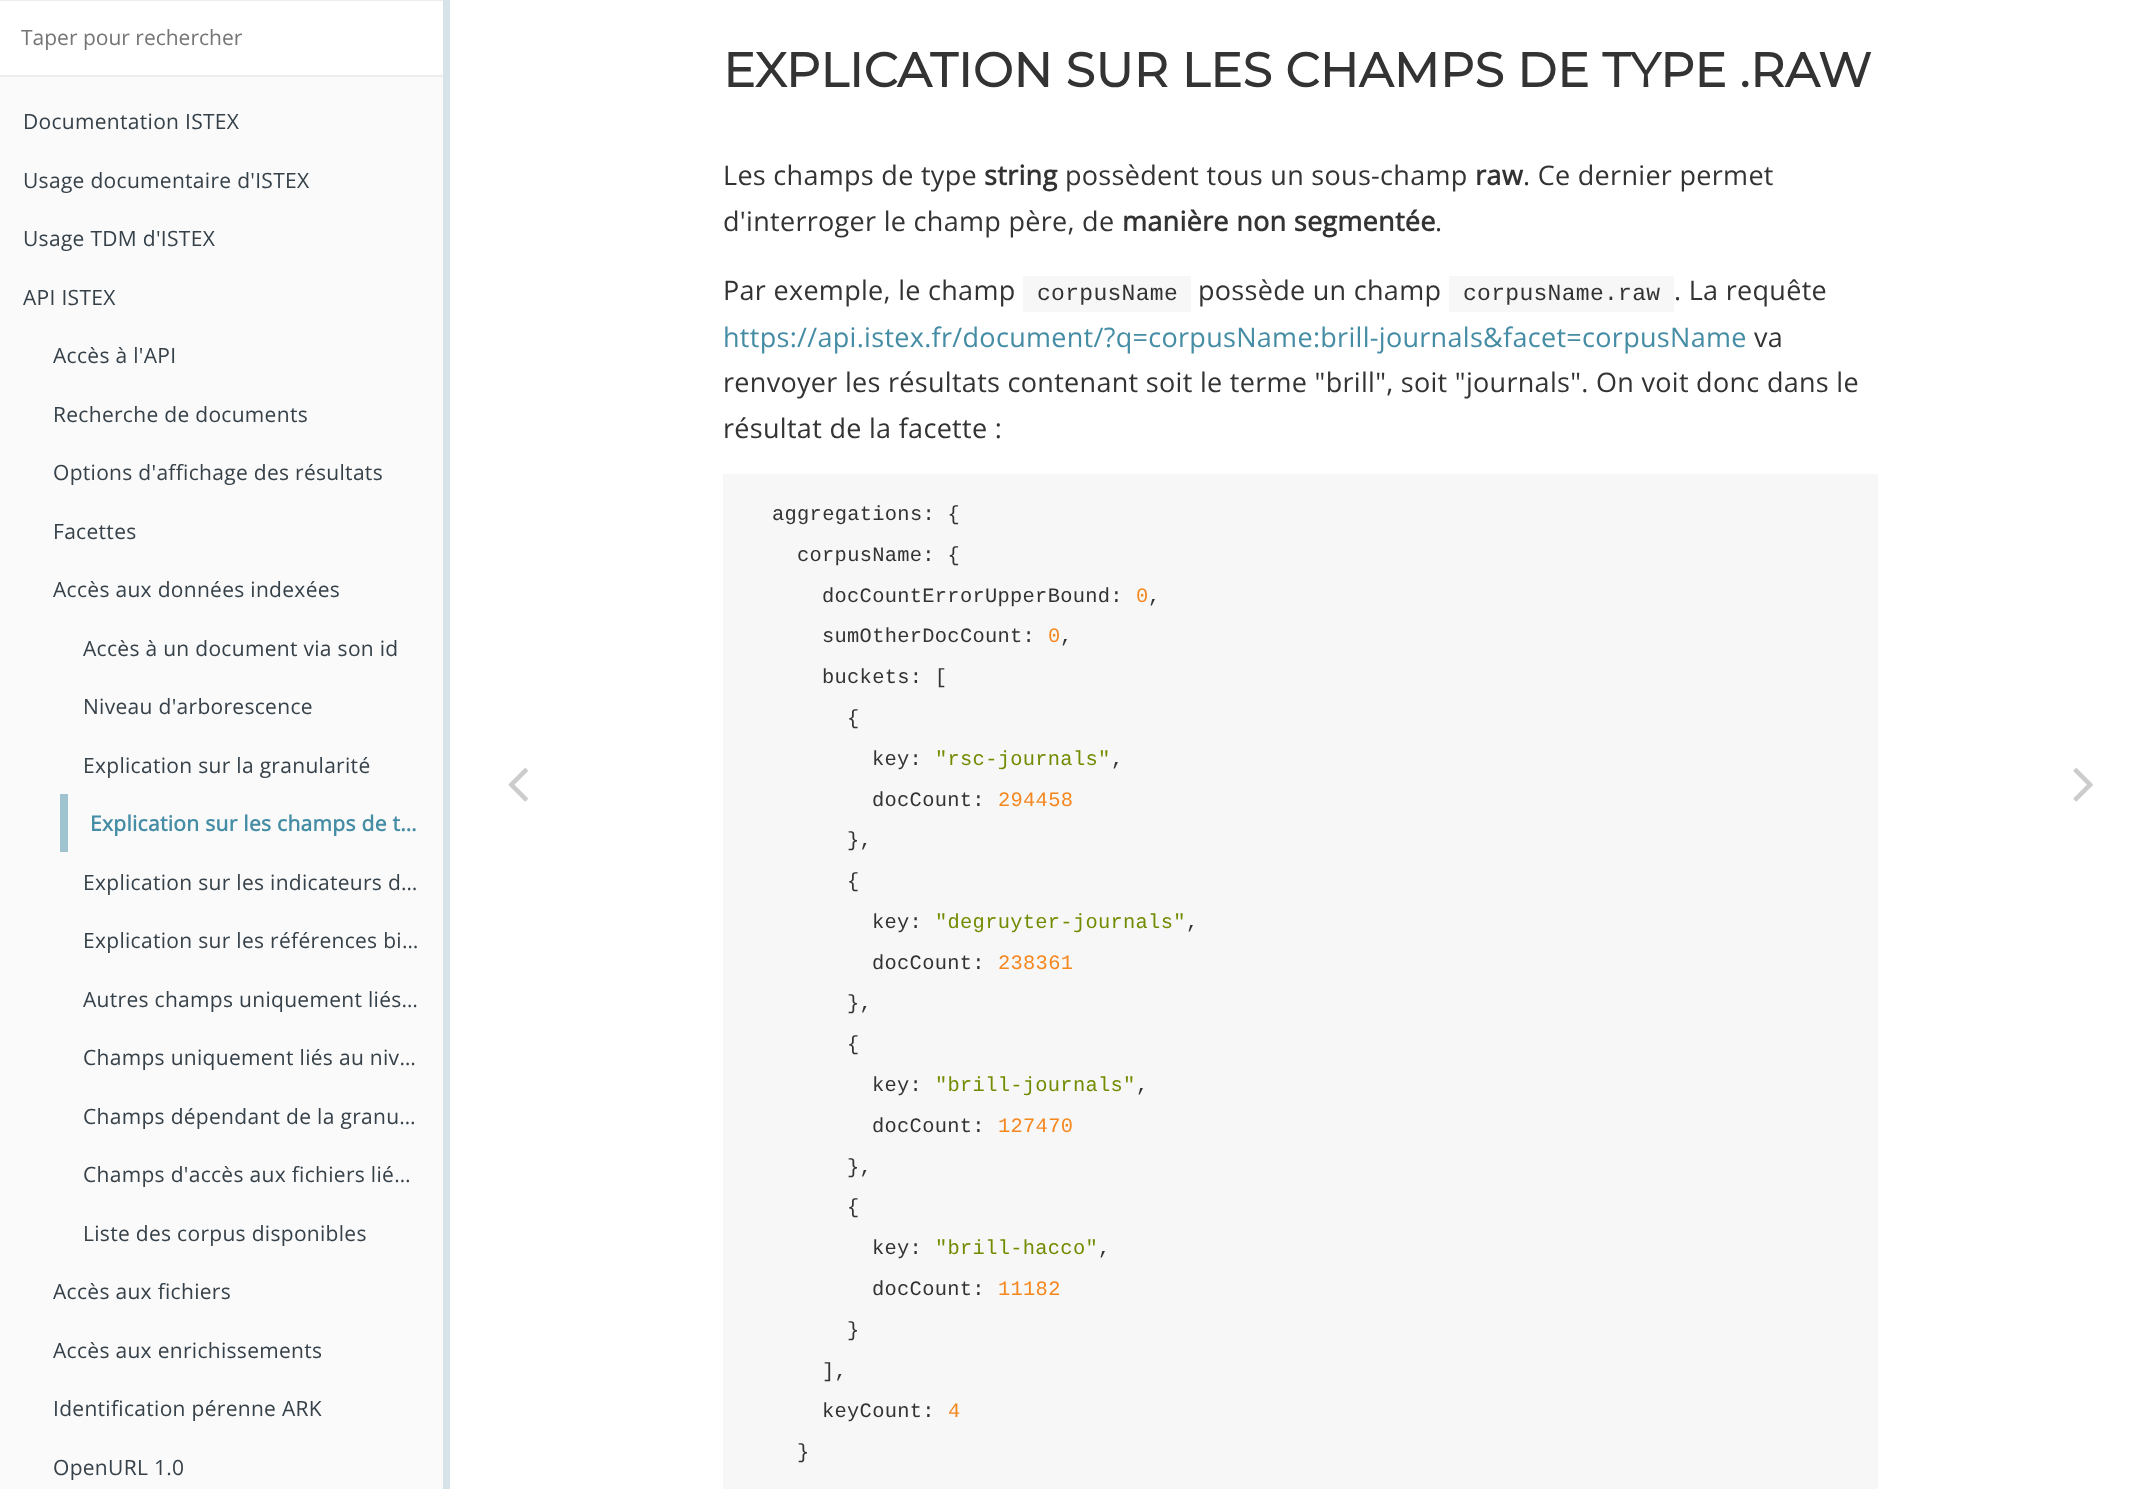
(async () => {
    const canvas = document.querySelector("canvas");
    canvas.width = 2150;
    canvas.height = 1489;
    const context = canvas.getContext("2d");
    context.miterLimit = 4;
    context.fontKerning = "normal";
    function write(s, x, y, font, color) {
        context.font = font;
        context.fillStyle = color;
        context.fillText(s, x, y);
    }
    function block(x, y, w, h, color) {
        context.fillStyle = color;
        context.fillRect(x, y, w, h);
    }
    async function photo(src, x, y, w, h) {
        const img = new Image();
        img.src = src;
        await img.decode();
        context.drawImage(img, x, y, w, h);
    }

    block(0, 0, 2150, 1489, "rgb(255, 255, 255)");
    block(0, 77, 443, 1412, "rgb(250, 250, 250)");
    block(443, 0, 7, 1489, "rgb(214, 228, 233)");
    block(0, 0, 443, 1, "rgb(237, 237, 237)");
    block(0, 75, 443, 2, "rgb(237, 237, 237)");
    write("Taper pour rechercher", 21, 45, "21px Open Sans", "rgb(117, 117, 117)");
    context.letterSpacing = "0.3px";
    write("Documentation ISTEX", 23, 129, "21px Open Sans", "rgb(54, 65, 73)");
    write("Usage documentaire d'ISTEX", 23, 188, "21px Open Sans", "rgb(54, 65, 73)");
    write("Usage TDM d'ISTEX", 23, 246, "21px Open Sans", "rgb(54, 65, 73)");
    write("API ISTEX", 23, 305, "21px Open Sans", "rgb(54, 65, 73)");
    write("Accès à l'API", 53, 363, "21px Open Sans", "rgb(54, 65, 73)");
    write("Recherche de documents", 53, 422, "21px Open Sans", "rgb(54, 65, 73)");
    write("Options d'affichage des résultats", 53, 480, "21px Open Sans", "rgb(54, 65, 73)");
    write("Facettes", 53, 539, "21px Open Sans", "rgb(54, 65, 73)");
    write("Accès aux données indexées", 53, 597, "21px Open Sans", "rgb(54, 65, 73)");
    write("Accès à un document via son id", 83, 656, "21px Open Sans", "rgb(54, 65, 73)");
    write("Niveau d'arborescence", 83, 714, "21px Open Sans", "rgb(54, 65, 73)");
    write("Explication sur la granularité", 83, 773, "21px Open Sans", "rgb(54, 65, 73)");
    block(60, 794, 8, 58, "rgb(160, 195, 208)");
    write("Explication sur les champs de t…", 90, 831, "bold 21px Open Sans", "rgb(69, 140, 165)");
    write("Explication sur les indicateurs d…", 83, 890, "21px Open Sans", "rgb(54, 65, 73)");
    write("Explication sur les références bi…", 83, 948, "21px Open Sans", "rgb(54, 65, 73)");
    write("Autres champs uniquement liés…", 83, 1007, "21px Open Sans", "rgb(54, 65, 73)");
    write("Champs uniquement liés au niv…", 83, 1065, "21px Open Sans", "rgb(54, 65, 73)");
    write("Champs dépendant de la granu…", 83, 1124, "21px Open Sans", "rgb(54, 65, 73)");
    write("Champs d'accès aux fichiers lié…", 83, 1182, "21px Open Sans", "rgb(54, 65, 73)");
    write("Liste des corpus disponibles", 83, 1241, "21px Open Sans", "rgb(54, 65, 73)");
    write("Accès aux fichiers", 53, 1299, "21px Open Sans", "rgb(54, 65, 73)");
    write("Accès aux enrichissements", 53, 1358, "21px Open Sans", "rgb(54, 65, 73)");
    write("Identification pérenne ARK", 53, 1416, "21px Open Sans", "rgb(54, 65, 73)");
    write("OpenURL 1.0", 53, 1475, "21px Open Sans", "rgb(54, 65, 73)");
    await photo("media/1.png", 508, 768, 20, 34);
    write("EXPLICATION SUR LES CHAMPS DE TYPE .RAW", 723, 87, "bold 48px Montserrat", "rgb(51, 51, 51)");
    write("Les champs de type", 723, 185, "27px Open Sans", "rgb(51, 51, 51)");
    write("string", 984, 185, "bold 27px Open Sans", "rgb(51, 51, 51)");
    write("possèdent tous un sous-champ", 1065, 185, "27px Open Sans", "rgb(51, 51, 51)");
    write("raw", 1475, 185, "bold 27px Open Sans", "rgb(51, 51, 51)");
    write(". Ce dernier permet", 1523, 185, "27px Open Sans", "rgb(51, 51, 51)");
    write("d'interroger le champ père, de", 723, 231, "27px Open Sans", "rgb(51, 51, 51)");
    write("manière non segmentée", 1122, 231, "bold 27px Open Sans", "rgb(51, 51, 51)");
    write(".", 1435, 231, "27px Open Sans", "rgb(51, 51, 51)");
    write("Par exemple, le champ", 723, 300, "27px Open Sans", "rgb(51, 51, 51)");
    block(1023, 276, 168, 36, "rgb(247, 247, 247)");
    write("corpusName", 1037, 300, "23px Liberation Mono", "rgb(51, 51, 51)");
    write("possède un champ", 1198, 300, "27px Open Sans", "rgb(51, 51, 51)");
    block(1449, 276, 225, 36, "rgb(247, 247, 247)");
    write("corpusName.raw", 1463, 300, "23px Liberation Mono", "rgb(51, 51, 51)");
    write(". La requête", 1674, 300, "27px Open Sans", "rgb(51, 51, 51)");
    write("https://api.istex.fr/document/?q=corpusName:brill-journals&facet=corpusName", 723, 347, "27px Open Sans", "rgb(69, 140, 165)");
    write("va", 1754, 347, "27px Open Sans", "rgb(51, 51, 51)");
    write("renvoyer les résultats contenant soit le terme \"brill\", soit \"journals\". On voit donc dans le", 723, 392, "27px Open Sans", "rgb(51, 51, 51)");
    write("résultat de la facette :", 723, 438, "27px Open Sans", "rgb(51, 51, 51)");
    block(723, 474, 1155, 1015, "rgb(247, 247, 247)");
    write("aggregations: {", 772, 520, "20.4px Liberation Mono", "rgb(51, 51, 51)");
    write("corpusName: {", 797, 561, "20.4px Liberation Mono", "rgb(51, 51, 51)");
    write("docCountErrorUpperBound:", 822, 602, "20.4px Liberation Mono", "rgb(51, 51, 51)");
    write("0", 1136, 602, "20.4px Liberation Mono", "rgb(245, 135, 31)");
    write(",", 1148, 602, "20.4px Liberation Mono", "rgb(51, 51, 51)");
    write("sumOtherDocCount:", 822, 642, "20.4px Liberation Mono", "rgb(51, 51, 51)");
    write("0", 1048, 642, "20.4px Liberation Mono", "rgb(245, 135, 31)");
    write(",", 1060, 642, "20.4px Liberation Mono", "rgb(51, 51, 51)");
    write("buckets: [", 822, 683, "20.4px Liberation Mono", "rgb(51, 51, 51)");
    write("{", 847, 724, "20.4px Liberation Mono", "rgb(51, 51, 51)");
    write("key:", 872, 765, "20.4px Liberation Mono", "rgb(51, 51, 51)");
    write("\"rsc-journals\"", 935, 765, "20.4px Liberation Mono", "rgb(113, 140, 0)");
    write(",", 1111, 765, "20.4px Liberation Mono", "rgb(51, 51, 51)");
    write("docCount:", 872, 806, "20.4px Liberation Mono", "rgb(51, 51, 51)");
    write("294458", 998, 806, "20.4px Liberation Mono", "rgb(245, 135, 31)");
    write("},", 847, 846, "20.4px Liberation Mono", "rgb(51, 51, 51)");
    write("{", 847, 887, "20.4px Liberation Mono", "rgb(51, 51, 51)");
    write("key:", 872, 928, "20.4px Liberation Mono", "rgb(51, 51, 51)");
    write("\"degruyter-journals\"", 935, 928, "20.4px Liberation Mono", "rgb(113, 140, 0)");
    write(",", 1186, 928, "20.4px Liberation Mono", "rgb(51, 51, 51)");
    write("docCount:", 872, 969, "20.4px Liberation Mono", "rgb(51, 51, 51)");
    write("238361", 998, 969, "20.4px Liberation Mono", "rgb(245, 135, 31)");
    write("},", 847, 1009, "20.4px Liberation Mono", "rgb(51, 51, 51)");
    write("{", 847, 1050, "20.4px Liberation Mono", "rgb(51, 51, 51)");
    write("key:", 872, 1091, "20.4px Liberation Mono", "rgb(51, 51, 51)");
    write("\"brill-journals\"", 935, 1091, "20.4px Liberation Mono", "rgb(113, 140, 0)");
    write(",", 1136, 1091, "20.4px Liberation Mono", "rgb(51, 51, 51)");
    write("docCount:", 872, 1132, "20.4px Liberation Mono", "rgb(51, 51, 51)");
    write("127470", 998, 1132, "20.4px Liberation Mono", "rgb(245, 135, 31)");
    write("},", 847, 1173, "20.4px Liberation Mono", "rgb(51, 51, 51)");
    write("{", 847, 1213, "20.4px Liberation Mono", "rgb(51, 51, 51)");
    write("key:", 872, 1254, "20.4px Liberation Mono", "rgb(51, 51, 51)");
    write("\"brill-hacco\"", 935, 1254, "20.4px Liberation Mono", "rgb(113, 140, 0)");
    write(",", 1098, 1254, "20.4px Liberation Mono", "rgb(51, 51, 51)");
    write("docCount:", 872, 1295, "20.4px Liberation Mono", "rgb(51, 51, 51)");
    write("11182", 998, 1295, "20.4px Liberation Mono", "rgb(245, 135, 31)");
    write("}", 847, 1336, "20.4px Liberation Mono", "rgb(51, 51, 51)");
    write("],", 822, 1377, "20.4px Liberation Mono", "rgb(51, 51, 51)");
    write("keyCount:", 822, 1417, "20.4px Liberation Mono", "rgb(51, 51, 51)");
    write("4", 948, 1417, "20.4px Liberation Mono", "rgb(245, 135, 31)");
    write("}", 797, 1458, "20.4px Liberation Mono", "rgb(51, 51, 51)");
    await photo("media/2.png", 2073, 768, 20, 34);
})();
